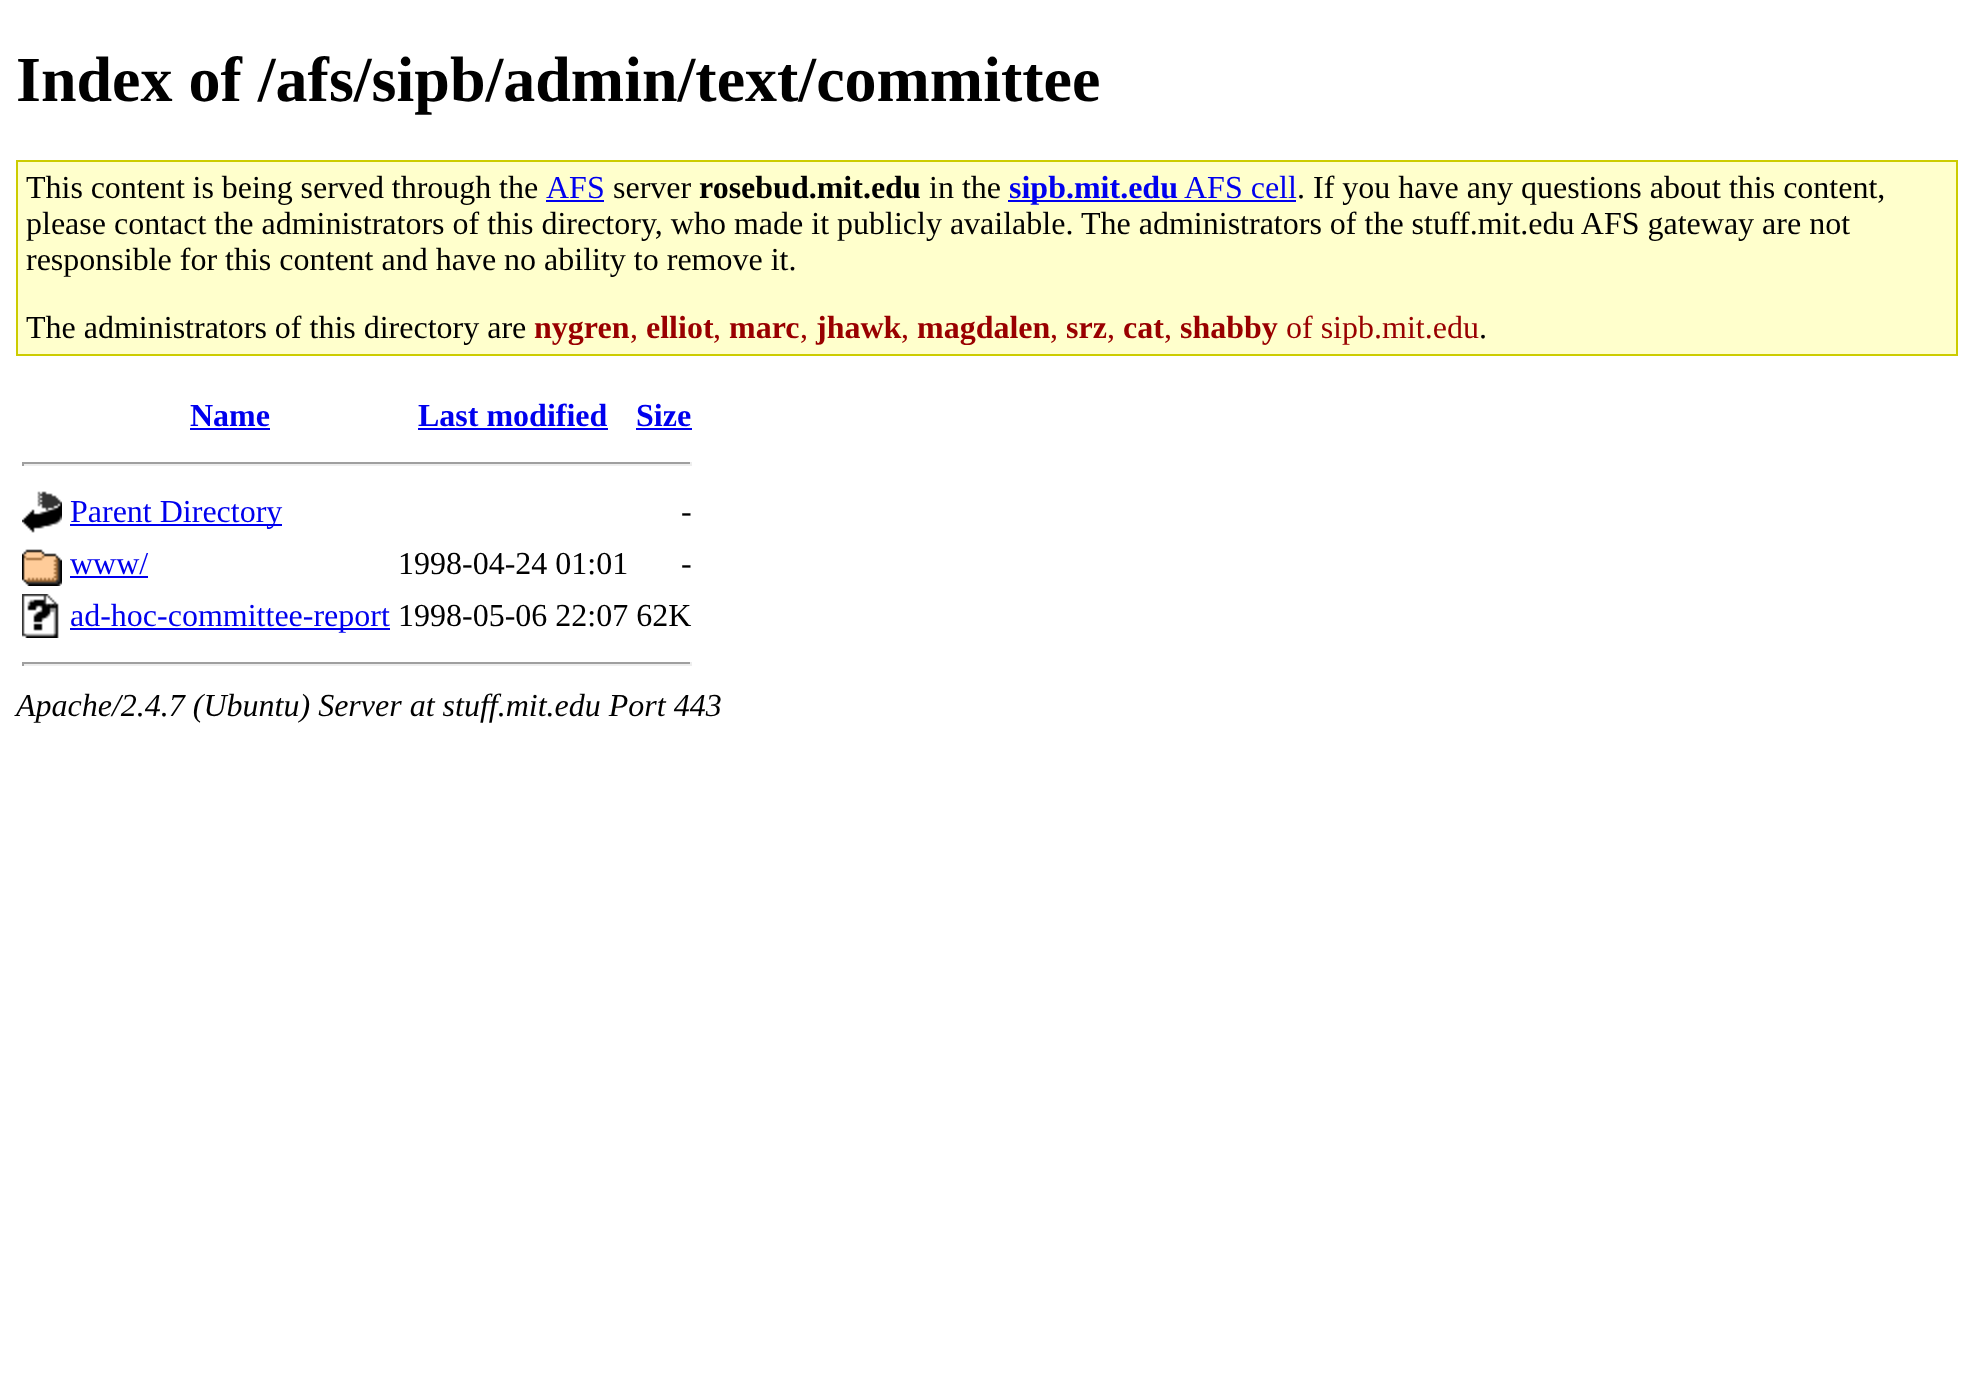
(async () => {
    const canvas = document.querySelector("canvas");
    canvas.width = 1974;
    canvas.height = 1385;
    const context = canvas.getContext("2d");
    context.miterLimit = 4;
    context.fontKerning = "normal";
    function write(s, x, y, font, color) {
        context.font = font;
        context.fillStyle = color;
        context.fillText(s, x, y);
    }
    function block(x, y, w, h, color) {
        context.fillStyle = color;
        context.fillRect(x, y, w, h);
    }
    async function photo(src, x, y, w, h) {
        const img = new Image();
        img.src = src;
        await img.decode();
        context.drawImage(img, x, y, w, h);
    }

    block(0, 0, 1974, 1385, "rgb(255, 255, 255)");
    write("Index of /afs/sipb/admin/text/committee", 16, 101, "bold 64px Liberation Serif", "rgb(0, 0, 0)");
    context.fillStyle = "rgb(255, 255, 204)";
    context.beginPath();
    context.rect(17, 161, 1940, 194);
    context.fill();
    context.strokeStyle = "rgb(204, 204, 0)";
    context.lineWidth = 2;
    context.stroke();
    context.wordSpacing = "-0.25px";
    write("This content is being served through the", 26, 198, "32px Liberation Serif", "rgb(0, 0, 0)");
    context.wordSpacing = "0px";
    write("AFS", 546, 198, "32px Liberation Serif", "rgb(0, 0, 238)");
    block(546, 200, 58, 2, "rgb(0, 0, 238)");
    write("server", 613, 198, "32px Liberation Serif", "rgb(0, 0, 0)");
    write("rosebud.mit.edu", 699, 198, "bold 32px Liberation Serif", "rgb(0, 0, 0)");
    write("in the", 929, 198, "32px Liberation Serif", "rgb(0, 0, 0)");
    block(1008, 200, 288, 2, "rgb(0, 0, 238)");
    write("sipb.mit.edu", 1009, 198, "bold 32px Liberation Serif", "rgb(0, 0, 238)");
    write("AFS cell", 1184, 198, "32px Liberation Serif", "rgb(0, 0, 238)");
    write(". If you have any questions about this content,", 1297, 198, "32px Liberation Serif", "rgb(0, 0, 0)");
    write("please contact the administrators of this directory, who made it publicly available.", 26, 234, "32px Liberation Serif", "rgb(0, 0, 0)");
    write("The administrators of the stuff.mit.edu AFS gateway are not", 1081, 234, "32px Liberation Serif", "rgb(0, 0, 0)");
    write("responsible for this content and have no ability to remove it.", 26, 270, "32px Liberation Serif", "rgb(0, 0, 0)");
    write("The administrators of this directory are", 26, 338, "32px Liberation Serif", "rgb(0, 0, 0)");
    write("nygren", 534, 338, "bold 32px Liberation Serif", "rgb(153, 0, 0)");
    write(",", 630, 338, "32px Liberation Serif", "rgb(153, 0, 0)");
    write("elliot", 646, 338, "bold 32px Liberation Serif", "rgb(153, 0, 0)");
    write(",", 713, 338, "32px Liberation Serif", "rgb(153, 0, 0)");
    write("marc", 729, 338, "bold 32px Liberation Serif", "rgb(153, 0, 0)");
    write(",", 800, 338, "32px Liberation Serif", "rgb(153, 0, 0)");
    write("jhawk", 816, 338, "bold 32px Liberation Serif", "rgb(153, 0, 0)");
    write(",", 901, 338, "32px Liberation Serif", "rgb(153, 0, 0)");
    write("magdalen", 917, 338, "bold 32px Liberation Serif", "rgb(153, 0, 0)");
    write(",", 1050, 338, "32px Liberation Serif", "rgb(153, 0, 0)");
    write("srz", 1066, 338, "bold 32px Liberation Serif", "rgb(153, 0, 0)");
    write(",", 1107, 338, "32px Liberation Serif", "rgb(153, 0, 0)");
    write("cat", 1123, 338, "bold 32px Liberation Serif", "rgb(153, 0, 0)");
    write(",", 1164, 338, "32px Liberation Serif", "rgb(153, 0, 0)");
    write("shabby", 1180, 338, "bold 32px Liberation Serif", "rgb(153, 0, 0)");
    write("of sipb.mit.edu", 1286, 338, "32px Liberation Serif", "rgb(153, 0, 0)");
    write(".", 1479, 338, "32px Liberation Serif", "rgb(0, 0, 0)");
    write("Name", 190, 426, "bold 32px Liberation Serif", "rgb(0, 0, 238)");
    block(190, 428, 80, 2, "rgb(0, 0, 238)");
    write("Last modified", 418, 426, "bold 32px Liberation Serif", "rgb(0, 0, 238)");
    block(418, 428, 190, 2, "rgb(0, 0, 238)");
    write("Size", 636, 426, "bold 32px Liberation Serif", "rgb(0, 0, 238)");
    block(636, 428, 56, 2, "rgb(0, 0, 238)");
    block(22, 462, 670, 2, "rgb(159, 159, 159)");
    block(690, 462, 2, 4, "rgb(238, 238, 238)");
    block(22, 464, 670, 2, "rgb(238, 238, 238)");
    block(22, 462, 2, 4, "rgb(159, 159, 159)");
    await photo("media/1.png", 22, 491, 40, 42);
    block(70, 524, 212, 2, "rgb(0, 0, 238)");
    write("Parent Directory", 70, 522, "32px Liberation Serif", "rgb(0, 0, 238)");
    write("-", 681, 522, "32px Liberation Serif", "rgb(0, 0, 0)");
    await photo("media/2.png", 22, 549, 40, 37);
    write("www/", 70, 574, "32px Liberation Serif", "rgb(0, 0, 238)");
    block(70, 576, 78, 2, "rgb(0, 0, 238)");
    write("1998-04-24 01:01", 398, 574, "32px Liberation Serif", "rgb(0, 0, 0)");
    write("-", 681, 574, "32px Liberation Serif", "rgb(0, 0, 0)");
    await photo("media/3.png", 22, 594, 37, 44);
    block(70, 628, 320, 2, "rgb(0, 0, 238)");
    write("ad-hoc-committee-report", 70, 626, "32px Liberation Serif", "rgb(0, 0, 238)");
    write("1998-05-06 22:07 62K", 398, 626, "32px Liberation Serif", "rgb(0, 0, 0)");
    block(22, 662, 670, 2, "rgb(159, 159, 159)");
    block(690, 662, 2, 4, "rgb(238, 238, 238)");
    block(22, 664, 670, 2, "rgb(238, 238, 238)");
    block(22, 662, 2, 4, "rgb(159, 159, 159)");
    write("Apache/2.4.7 (Ubuntu) Server at stuff.mit.edu Port 443", 16, 716, "italic 32px Liberation Serif", "rgb(0, 0, 0)");
})();
